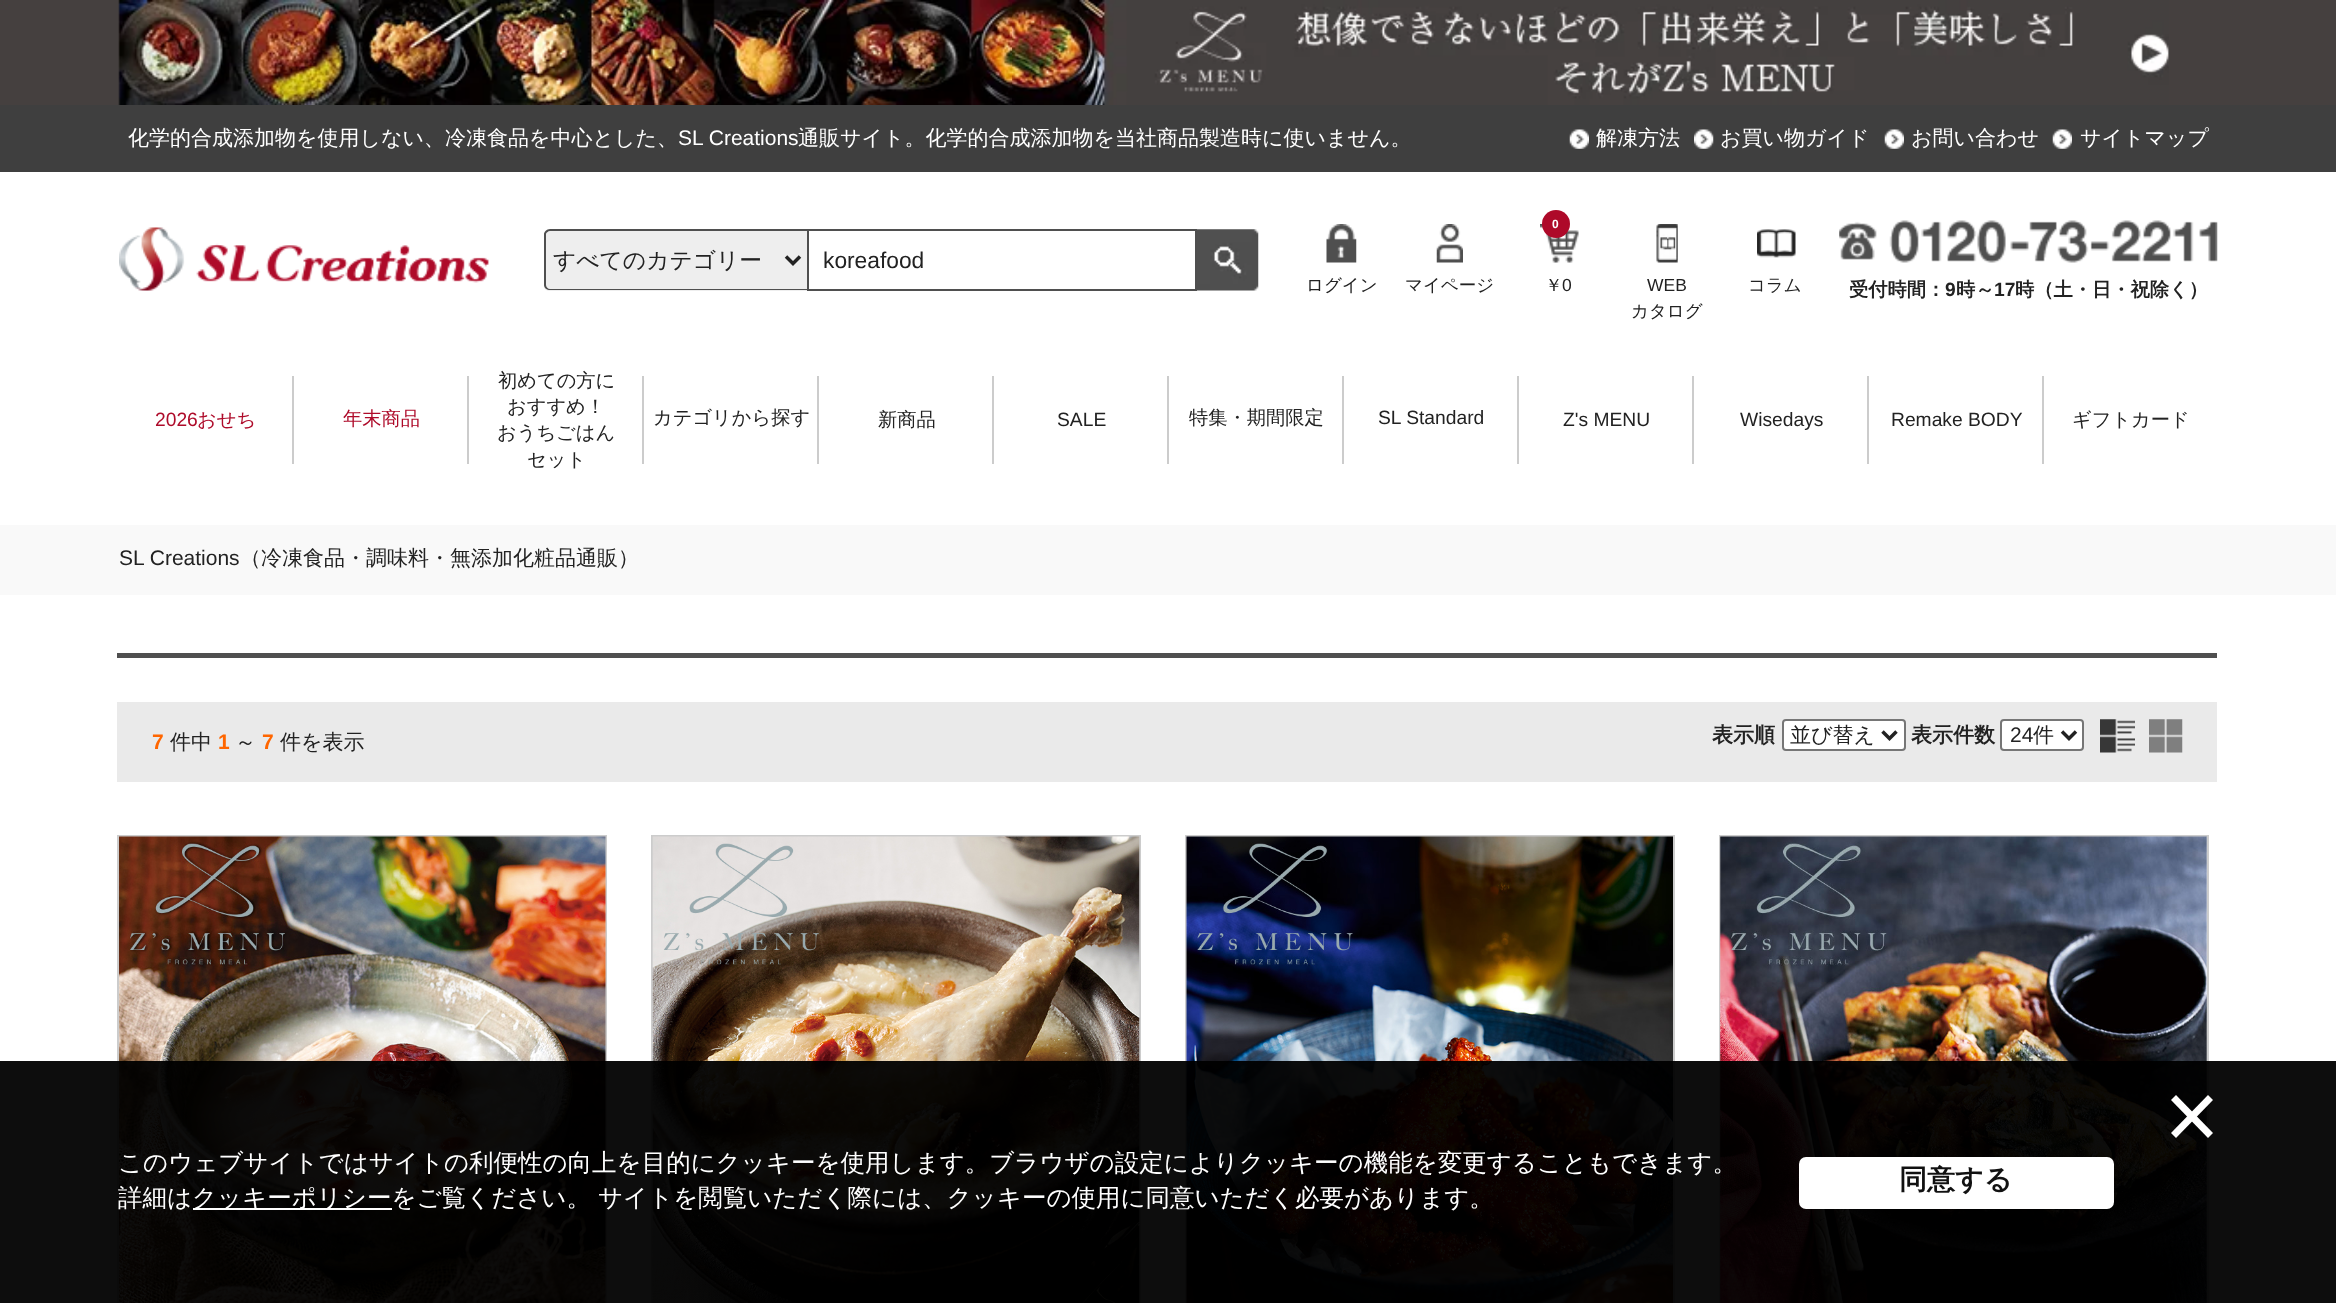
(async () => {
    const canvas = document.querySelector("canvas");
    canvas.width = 2336;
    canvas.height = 1303;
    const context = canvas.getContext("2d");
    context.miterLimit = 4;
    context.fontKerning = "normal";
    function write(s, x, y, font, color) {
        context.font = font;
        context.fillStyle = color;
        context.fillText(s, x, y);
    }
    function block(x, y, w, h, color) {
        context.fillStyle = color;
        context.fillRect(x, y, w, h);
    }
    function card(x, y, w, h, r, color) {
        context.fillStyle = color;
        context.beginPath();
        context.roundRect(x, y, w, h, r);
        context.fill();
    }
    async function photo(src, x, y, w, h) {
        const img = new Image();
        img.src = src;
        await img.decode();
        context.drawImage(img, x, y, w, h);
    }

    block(0, 0, 2336, 1303, "rgb(255, 255, 255)");
    block(0, 0, 2336, 105, "rgb(69, 64, 63)");
    await photo("media/1.png", 118, 0, 2051, 105);
    block(0, 105, 2336, 67, "rgb(63, 63, 63)");
    write("化学的合成添加物を使用しない、冷凍食品を中心とした、", 128, 145, "500 21px WenQuanYi Zen Hei", "rgb(255, 255, 255)");
    write("SL Creations", 678, 145, "21px Liberation Sans", "rgb(255, 255, 255)");
    write("通販サイト。化学的合成添加物を当社商品製造時に使いません。", 798, 145, "500 21px WenQuanYi Zen Hei", "rgb(255, 255, 255)");
    await photo("media/2.png", 1569, 129, 20, 20);
    write("解凍方法", 1596, 145, "500 21px WenQuanYi Zen Hei", "rgb(255, 255, 255)");
    await photo("media/3.png", 1694, 129, 20, 20);
    write("お買い物ガイド", 1720, 145, "500 21px WenQuanYi Zen Hei", "rgb(255, 255, 255)");
    await photo("media/4.png", 1884, 129, 20, 20);
    write("お問い合わせ", 1911, 145, "500 21px WenQuanYi Zen Hei", "rgb(255, 255, 255)");
    await photo("media/2.png", 2052, 129, 20, 20);
    write("サイトマップ", 2080, 145, "500 21px WenQuanYi Zen Hei", "rgb(255, 255, 255)");
    await photo("media/5.png", 119, 227, 370, 64);
    context.fillStyle = "rgb(238, 238, 238)";
    context.beginPath();
    context.roundRect(544, 229, 263, 62, [5, 0, 0, 5]);
    context.fill();
    context.fillStyle = "rgb(79, 79, 79)";
    context.beginPath();
    context.moveTo(550, 229);
    context.lineTo(807, 229);
    context.lineTo(807, 290);
    context.lineTo(550, 290);
    context.bezierCurveTo(547, 290, 544, 288, 544, 285);
    context.lineTo(544, 234);
    context.bezierCurveTo(544, 232, 547, 229, 550, 229);
    context.closePath();
    context.moveTo(550, 231);
    context.lineTo(807, 231);
    context.lineTo(807, 289);
    context.lineTo(550, 289);
    context.bezierCurveTo(548, 289, 546, 287, 546, 285);
    context.lineTo(546, 234);
    context.bezierCurveTo(546, 233, 548, 231, 550, 231);
    context.closePath();
    context.fill("evenodd");
    context.beginPath();
    context.moveTo(786, 256.5);
    context.lineTo(793, 263.5);
    context.lineTo(800, 256.5);
    context.strokeStyle = "rgb(34, 34, 34)";
    context.lineWidth = 3.5;
    context.stroke();
    write("すべてのカテゴリー", 553, 268, "500 22.75px WenQuanYi Zen Hei", "rgb(34, 34, 34)");
    context.strokeStyle = "rgb(79, 79, 79)";
    context.lineWidth = 2;
    context.strokeRect(808, 230, 388, 60);
    write("koreafood", 823, 268, "22.75px Liberation Sans", "rgb(34, 34, 34)");
    await photo("media/6.png", 1197, 229, 62, 62);
    await photo("media/7.png", 1326, 224, 31, 39);
    write("ログイン", 1306, 291, "500 17.5px WenQuanYi Zen Hei", "rgb(34, 34, 34)");
    await photo("media/8.png", 1436, 224, 27, 39);
    write("マイページ", 1405, 291, "500 17.5px WenQuanYi Zen Hei", "rgb(34, 34, 34)");
    await photo("media/9.png", 1540, 224, 39, 39);
    context.fillStyle = "rgb(174, 9, 41)";
    context.beginPath();
    context.arc(1556, 224, 14, 0, Math.PI * 2);
    context.fill();
    write("0", 1552, 228, "bold 12px Liberation Sans", "rgb(255, 255, 255)");
    write("￥", 1545, 291, "500 17.5px WenQuanYi Zen Hei", "rgb(34, 34, 34)");
    write("0", 1562, 291, "17.5px Liberation Sans", "rgb(34, 34, 34)");
    await photo("media/10.png", 1656, 224, 22, 39);
    write("WEB", 1647, 291, "17.5px Liberation Sans", "rgb(34, 34, 34)");
    write("カタログ", 1631, 317, "500 17.5px WenQuanYi Zen Hei", "rgb(34, 34, 34)");
    await photo("media/11.png", 1757, 229, 39, 29);
    write("コラム", 1748, 291, "500 17.5px WenQuanYi Zen Hei", "rgb(34, 34, 34)");
    await photo("media/12.png", 1839, 220, 379, 43);
    write("受付時間：", 1849, 296, "bold 19.25px WenQuanYi Zen Hei", "rgb(34, 34, 34)");
    write("9", 1945, 296, "bold 19.25px Liberation Sans", "rgb(34, 34, 34)");
    write("時～", 1956, 296, "bold 19.25px WenQuanYi Zen Hei", "rgb(34, 34, 34)");
    write("17", 1994, 296, "bold 19.25px Liberation Sans", "rgb(34, 34, 34)");
    write("時（土・日・祝除く）", 2015, 296, "bold 19.25px WenQuanYi Zen Hei", "rgb(34, 34, 34)");
    write("2026", 155, 426, "19.25px Liberation Sans", "rgb(174, 11, 42)");
    write("おせち", 197, 426, "500 19.25px WenQuanYi Zen Hei", "rgb(174, 11, 42)");
    block(292, 376, 2, 88, "rgb(204, 204, 204)");
    write("年末商品", 343, 425, "500 19.25px WenQuanYi Zen Hei", "rgb(174, 11, 42)");
    block(467, 376, 2, 88, "rgb(204, 204, 204)");
    write("初めての方に", 498, 387, "500 19.25px WenQuanYi Zen Hei", "rgb(34, 34, 34)");
    write("おすすめ！", 507, 413, "500 19.25px WenQuanYi Zen Hei", "rgb(34, 34, 34)");
    write("おうちごはん", 497, 439, "500 19.25px WenQuanYi Zen Hei", "rgb(34, 34, 34)");
    write("セット", 527, 466, "500 19.25px WenQuanYi Zen Hei", "rgb(34, 34, 34)");
    block(642, 376, 2, 88, "rgb(204, 204, 204)");
    write("カテゴリから探す", 653, 424, "500 19.25px WenQuanYi Zen Hei", "rgb(34, 34, 34)");
    block(817, 376, 2, 88, "rgb(204, 204, 204)");
    write("新商品", 878, 426, "500 19.25px WenQuanYi Zen Hei", "rgb(34, 34, 34)");
    block(992, 376, 2, 88, "rgb(204, 204, 204)");
    write("SALE", 1057, 426, "19.25px Liberation Sans", "rgb(34, 34, 34)");
    block(1167, 376, 2, 88, "rgb(204, 204, 204)");
    write("特集・期間限定", 1189, 424, "500 19.25px WenQuanYi Zen Hei", "rgb(34, 34, 34)");
    block(1342, 376, 2, 88, "rgb(204, 204, 204)");
    write("SL Standard", 1378, 424, "19.25px Liberation Sans", "rgb(34, 34, 34)");
    block(1517, 376, 2, 88, "rgb(204, 204, 204)");
    write("Z's MENU", 1563, 426, "19.25px Liberation Sans", "rgb(34, 34, 34)");
    block(1692, 376, 2, 88, "rgb(204, 204, 204)");
    write("Wisedays", 1740, 426, "19.25px Liberation Sans", "rgb(34, 34, 34)");
    block(1867, 376, 2, 88, "rgb(204, 204, 204)");
    write("Remake BODY", 1891, 426, "19.25px Liberation Sans", "rgb(34, 34, 34)");
    block(2042, 376, 2, 88, "rgb(204, 204, 204)");
    write("ギフトカード", 2072, 426, "500 19.25px WenQuanYi Zen Hei", "rgb(34, 34, 34)");
    block(0, 525, 2336, 70, "rgb(249, 249, 249)");
    write("SL Creations", 119, 565, "21px Liberation Sans", "rgb(34, 34, 34)");
    write("（冷凍食品・調味料・無添加化粧品通販）", 240, 565, "500 21px WenQuanYi Zen Hei", "rgb(34, 34, 34)");
    block(117, 653, 2100, 5, "rgb(79, 79, 79)");
    block(117, 702, 2100, 80, "rgb(234, 234, 234)");
    write("7", 152, 749, "bold 21px Liberation Sans", "rgb(255, 102, 0)");
    write("件中", 170, 749, "500 21px WenQuanYi Zen Hei", "rgb(34, 34, 34)");
    write("1", 218, 749, "bold 21px Liberation Sans", "rgb(255, 102, 0)");
    write("～", 235, 749, "500 21px WenQuanYi Zen Hei", "rgb(34, 34, 34)");
    write("7", 262, 749, "bold 21px Liberation Sans", "rgb(255, 102, 0)");
    write("件を表示", 280, 749, "500 21px WenQuanYi Zen Hei", "rgb(34, 34, 34)");
    write("表示順", 1712, 742, "bold 21px WenQuanYi Zen Hei", "rgb(34, 34, 34)");
    context.fillStyle = "rgb(255, 255, 255)";
    context.beginPath();
    context.roundRect(1783, 720, 122, 30, 3);
    context.fill();
    context.strokeStyle = "rgb(118, 118, 118)";
    context.stroke();
    context.beginPath();
    context.moveTo(1882.5, 731.5);
    context.lineTo(1889.5, 738.5);
    context.lineTo(1896.5, 731.5);
    context.strokeStyle = "rgb(34, 34, 34)";
    context.lineWidth = 3.5;
    context.stroke();
    write("並び替え", 1790, 742, "500 21px WenQuanYi Zen Hei", "rgb(34, 34, 34)");
    write("表示件数", 1911, 742, "bold 21px WenQuanYi Zen Hei", "rgb(34, 34, 34)");
    context.fillStyle = "rgb(255, 255, 255)";
    context.beginPath();
    context.roundRect(2001, 720, 82, 30, 3);
    context.fill();
    context.strokeStyle = "rgb(118, 118, 118)";
    context.lineWidth = 2;
    context.stroke();
    context.beginPath();
    context.moveTo(2062, 731.5);
    context.lineTo(2069, 738.5);
    context.lineTo(2076, 731.5);
    context.strokeStyle = "rgb(34, 34, 34)";
    context.lineWidth = 3.5;
    context.stroke();
    write("24", 2010, 742, "21px Liberation Sans", "rgb(34, 34, 34)");
    write("件", 2033, 742, "500 21px WenQuanYi Zen Hei", "rgb(34, 34, 34)");
    await photo("media/13.png", 2100, 719, 35, 34);
    await photo("media/14.png", 2149, 719, 34, 34);
    context.strokeStyle = "rgb(204, 204, 204)";
    context.lineWidth = 2;
    context.strokeRect(118, 836, 488, 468);
    await photo("media/15.png", 119, 836, 487, 467);
    context.strokeRect(652, 836, 488, 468);
    await photo("media/16.png", 652, 836, 488, 467);
    context.strokeRect(1186, 836, 488, 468);
    await photo("media/17.png", 1186, 836, 487, 467);
    context.strokeRect(1720, 836, 488, 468);
    await photo("media/18.png", 1720, 836, 487, 467);
    block(0, 1061, 2336, 242, "rgba(0, 0, 0, 0.95)");
    context.fillStyle = "rgb(255, 255, 255)";
    context.beginPath();
    context.moveTo(2176, 1095);
    context.lineTo(2213, 1133);
    context.lineTo(2208, 1138);
    context.lineTo(2171, 1100);
    context.closePath();
    context.fill();
    context.beginPath();
    context.moveTo(2171, 1133);
    context.lineTo(2208, 1095);
    context.lineTo(2213, 1100);
    context.lineTo(2176, 1138);
    context.closePath();
    context.fill();
    write("このウェブサイトではサイトの利便性の向上を目的にクッキーを使用します。ブラウザの設定によりクッキーの機能を変更することもできます。", 118, 1171, "500 24.5px WenQuanYi Zen Hei", "rgb(255, 255, 255)");
    write("詳細は", 118, 1206, "500 24.5px WenQuanYi Zen Hei", "rgb(255, 255, 255)");
    block(193, 1208, 199, 2, "rgb(255, 255, 255)");
    write("クッキーポリシーをご覧ください。", 192, 1206, "500 24.5px WenQuanYi Zen Hei", "rgb(255, 255, 255)");
    write("サイトを閲覧いただく際には、クッキーの使用に同意いただく必要があります。", 598, 1206, "500 24.5px WenQuanYi Zen Hei", "rgb(255, 255, 255)");
    card(1799, 1157, 315, 52, 7, "rgb(255, 255, 255)");
    write("同意する", 1899, 1189, "bold 28px WenQuanYi Zen Hei", "rgb(17, 17, 17)");
})();
